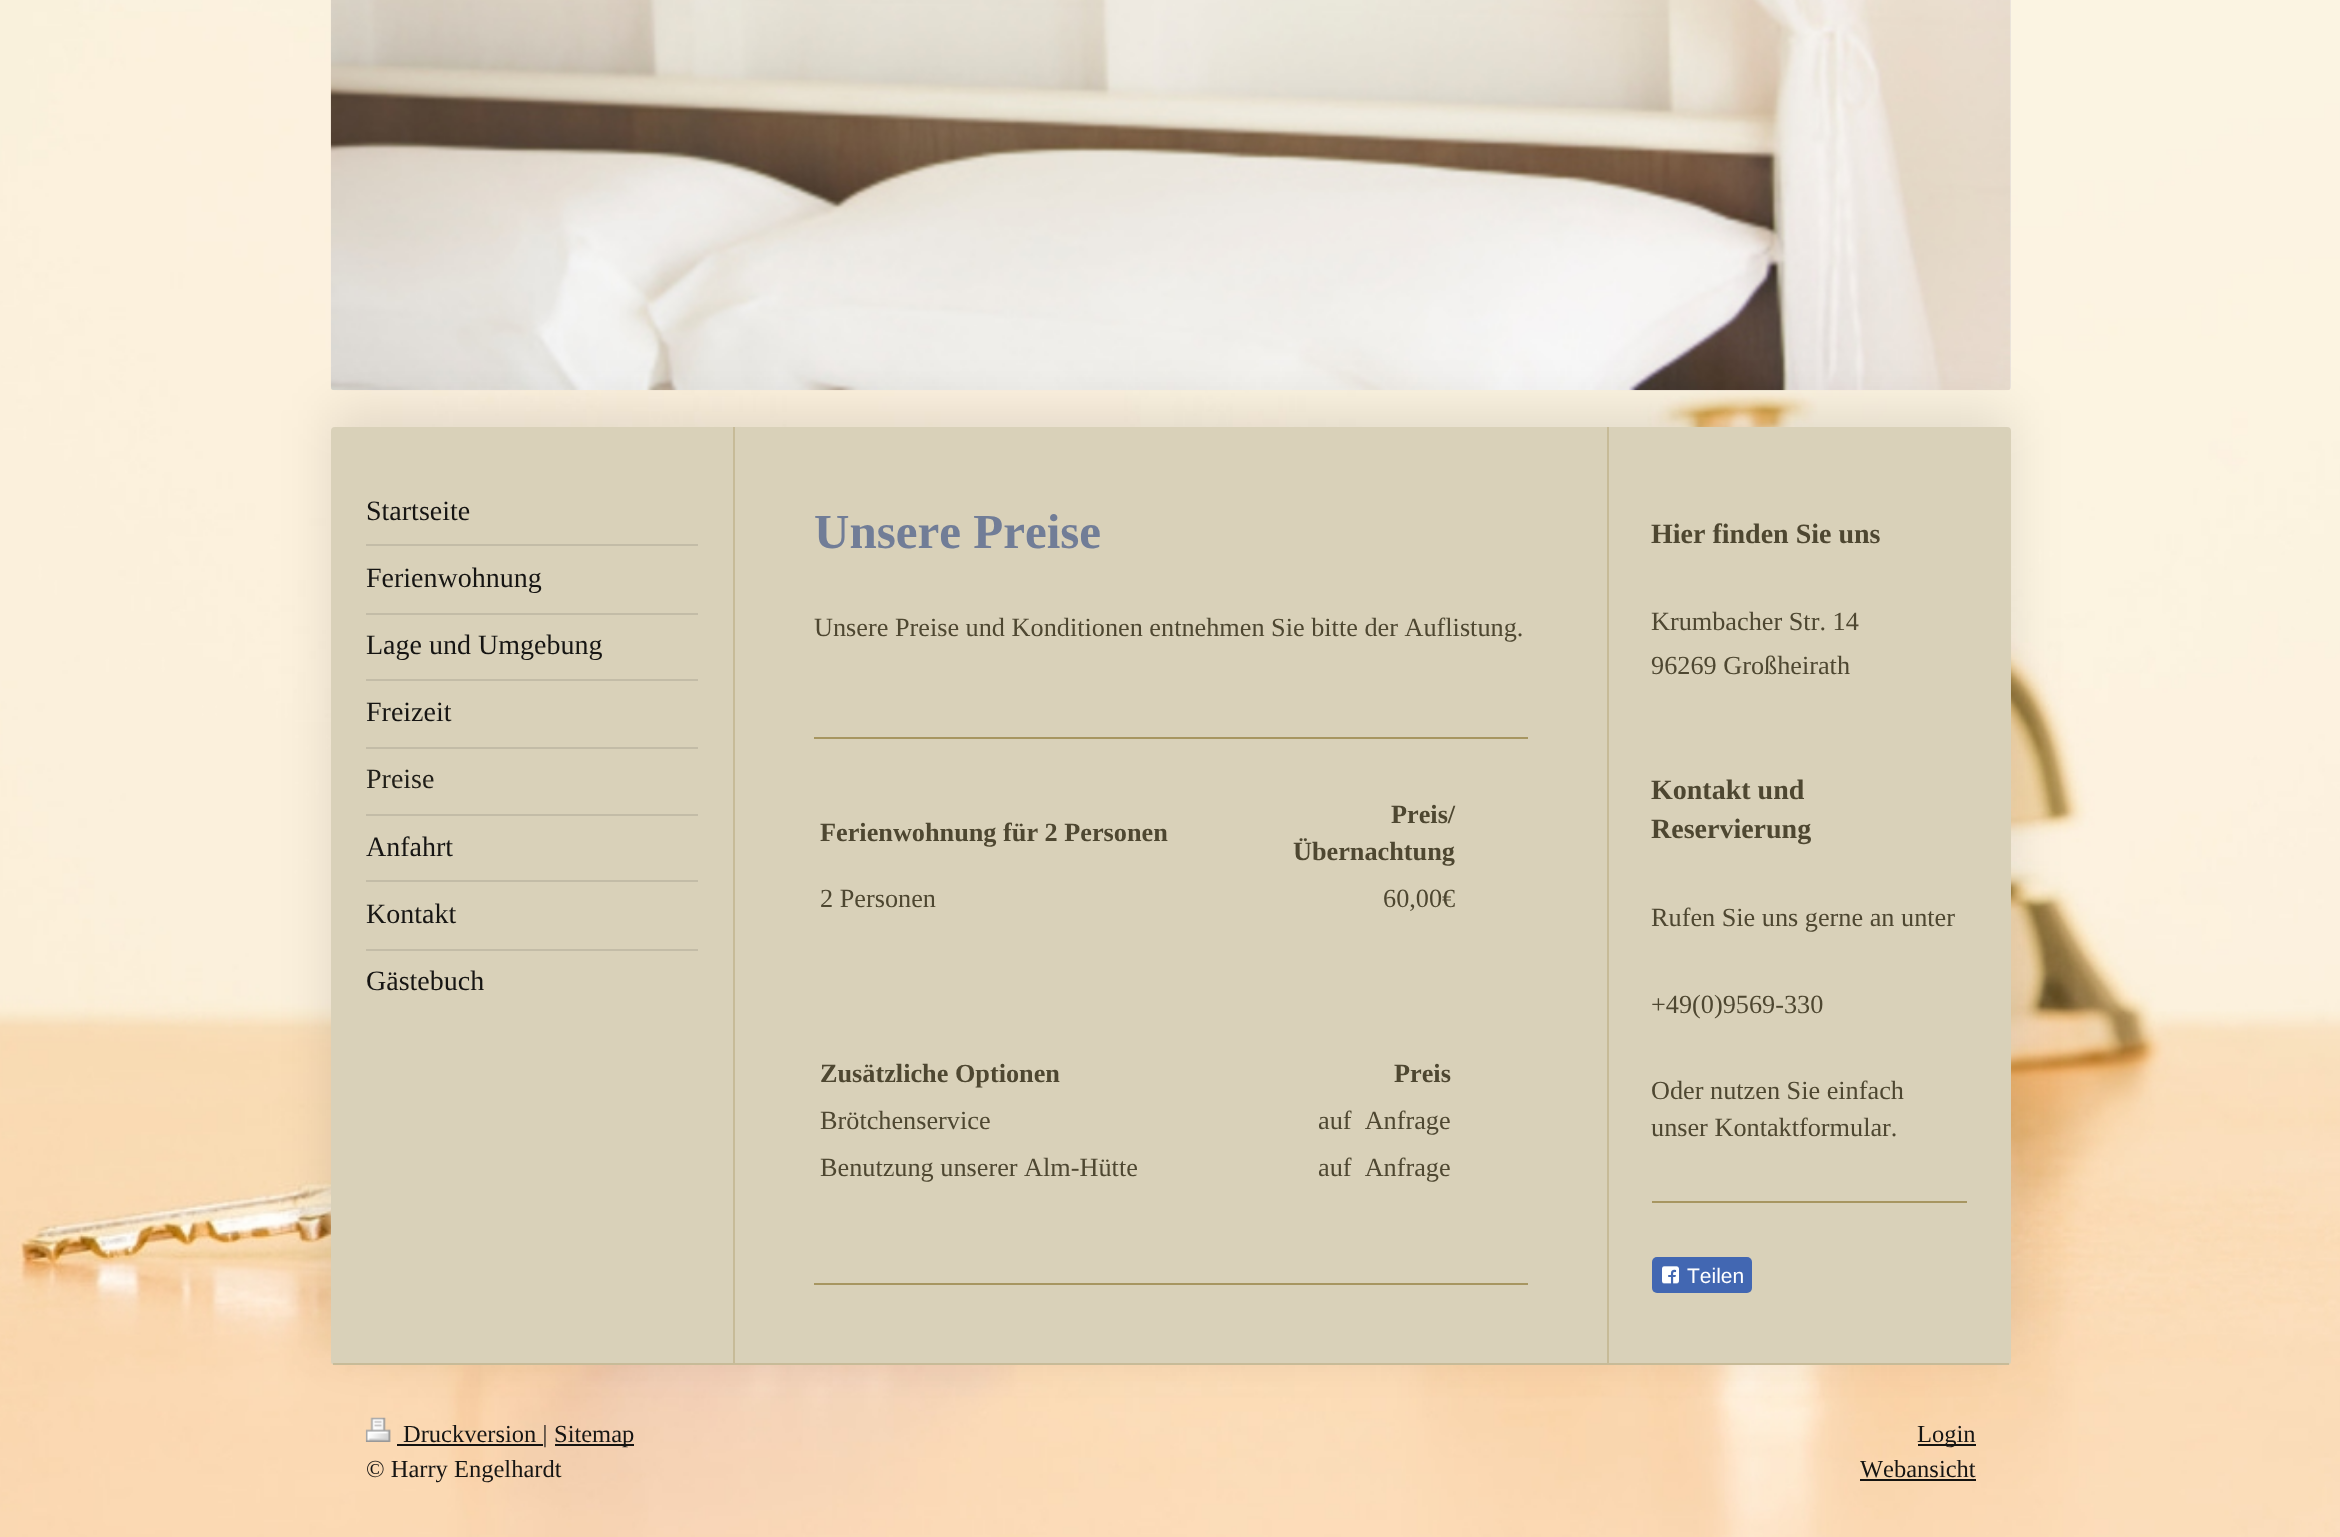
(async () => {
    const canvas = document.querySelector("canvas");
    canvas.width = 2340;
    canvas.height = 1537;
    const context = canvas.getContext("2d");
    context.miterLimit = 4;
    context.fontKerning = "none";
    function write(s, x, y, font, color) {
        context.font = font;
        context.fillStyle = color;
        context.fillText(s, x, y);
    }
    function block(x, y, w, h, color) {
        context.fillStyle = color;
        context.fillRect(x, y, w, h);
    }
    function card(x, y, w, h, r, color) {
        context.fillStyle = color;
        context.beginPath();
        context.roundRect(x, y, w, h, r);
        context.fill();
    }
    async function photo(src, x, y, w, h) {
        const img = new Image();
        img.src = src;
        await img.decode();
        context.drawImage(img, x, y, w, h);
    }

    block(0, 0, 2340, 1537, "rgb(255, 255, 255)");
    await photo("media/1.png", 0, 0, 2340, 1537);
    card(331, -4, 1680, 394, 4, "rgb(238, 238, 238)");
    await photo("media/2.png", 330, 0, 1681, 391);
    context.fillStyle = "rgba(0, 0, 0, 0.1)";
    context.filter = "blur(26px)";
    context.beginPath();
    context.roundRect(331, 410, 1680, 938, 4);
    context.fill();
    context.filter = "none";
    card(331, 427, 1680, 938, 4, "rgb(217, 209, 185)");
    block(333, 1363, 1676, 2, "rgb(199, 187, 152)");
    block(366, 544, 332, 2, "rgb(195, 188, 167)");
    write("Startseite", 366, 520, "28px Liberation Serif", "rgb(22, 21, 19)");
    block(366, 613, 332, 2, "rgb(195, 188, 167)");
    write("Ferienwohnung", 366, 587, "28px Liberation Serif", "rgb(22, 21, 19)");
    block(366, 679, 332, 2, "rgb(195, 188, 167)");
    write("Lage und Umgebung", 366, 654, "28px Liberation Serif", "rgb(22, 21, 19)");
    block(366, 747, 332, 2, "rgb(195, 188, 167)");
    write("Freizeit", 366, 721, "28px Liberation Serif", "rgb(22, 21, 19)");
    block(366, 814, 332, 2, "rgb(195, 188, 167)");
    write("Preise", 366, 788, "28px Liberation Serif", "rgb(33, 31, 25)");
    block(366, 880, 332, 2, "rgb(195, 188, 167)");
    write("Anfahrt", 366, 856, "28px Liberation Serif", "rgb(22, 21, 19)");
    block(366, 949, 332, 2, "rgb(195, 188, 167)");
    write("Kontakt", 366, 923, "28px Liberation Serif", "rgb(22, 21, 19)");
    write("Gästebuch", 366, 990, "28px Liberation Serif", "rgb(22, 21, 19)");
    block(1607, 427, 2, 936, "rgb(199, 187, 152)");
    block(733, 427, 2, 936, "rgb(199, 187, 152)");
    write("Unsere Preise", 814, 548, "bold 49px Liberation Serif", "rgb(113, 125, 151)");
    write("Unsere Preise und Konditionen entnehmen Sie bitte der Auflistung.", 814, 636, "26.25px Liberation Serif", "rgb(78, 71, 49)");
    block(814, 737, 714, 2, "rgb(167, 150, 97)");
    write("Ferienwohnung für 2 Personen", 820, 841, "bold 26.25px Liberation Serif", "rgb(78, 71, 49)");
    write("Preis/", 1391, 823, "bold 26.25px Liberation Serif", "rgb(78, 71, 49)");
    write("Übernachtung", 1293, 860, "bold 26.25px Liberation Serif", "rgb(78, 71, 49)");
    write("2 Personen", 820, 907, "26.25px Liberation Serif", "rgb(78, 71, 49)");
    write("60,00€", 1383, 907, "26.25px Liberation Serif", "rgb(78, 71, 49)");
    write("Zusätzliche Optionen", 820, 1082, "bold 26.25px Liberation Serif", "rgb(78, 71, 49)");
    write("Preis", 1394, 1082, "bold 26.25px Liberation Serif", "rgb(78, 71, 49)");
    write("Brötchenservice", 820, 1129, "26.25px Liberation Serif", "rgb(78, 71, 49)");
    write("auf  Anfrage", 1318, 1129, "26.25px Liberation Serif", "rgb(78, 71, 49)");
    write("Benutzung unserer Alm-Hütte", 820, 1176, "26.25px Liberation Serif", "rgb(78, 71, 49)");
    write("auf  Anfrage", 1318, 1176, "26.25px Liberation Serif", "rgb(78, 71, 49)");
    block(814, 1283, 714, 2, "rgb(167, 150, 97)");
    write("Hier finden Sie uns", 1651, 543, "bold 28px Liberation Serif", "rgb(78, 71, 49)");
    write("Krumbacher Str. 14", 1651, 630, "26.25px Liberation Serif", "rgb(78, 71, 49)");
    write("96269 Großheirath", 1651, 674, "26.25px Liberation Serif", "rgb(78, 71, 49)");
    write("Kontakt und", 1651, 799, "bold 28px Liberation Serif", "rgb(78, 71, 49)");
    write("Reservierung", 1651, 838, "bold 28px Liberation Serif", "rgb(78, 71, 49)");
    write("Rufen Sie uns gerne an unter", 1651, 926, "26.25px Liberation Serif", "rgb(78, 71, 49)");
    write("+49(0)9569-330", 1651, 1013, "26.25px Liberation Serif", "rgb(78, 71, 49)");
    write("Oder nutzen Sie einfach", 1651, 1099, "26.25px Liberation Serif", "rgb(78, 71, 49)");
    write("unser Kontaktformular.", 1651, 1136, "26.25px Liberation Serif", "rgb(78, 71, 49)");
    block(1652, 1201, 315, 2, "rgb(167, 150, 97)");
    card(1652, 1257, 100, 36, 5, "rgb(66, 103, 178)");
    await photo("media/3.png", 1662, 1266, 17, 18);
    write("Teilen", 1687, 1283, "21px Liberation Sans", "rgb(255, 255, 255)");
    await photo("media/4.png", 365, 1417, 26, 25);
    block(397, 1444, 146, 2, "rgb(20, 19, 16)");
    write("Druckversion |", 403, 1442, "24.5px Liberation Serif", "rgb(22, 21, 19)");
    block(555, 1444, 79, 2, "rgb(20, 19, 16)");
    write("Sitemap", 554, 1442, "24.5px Liberation Serif", "rgb(22, 21, 19)");
    write("© Harry Engelhardt", 366, 1477, "24.5px Liberation Serif", "rgb(22, 21, 19)");
    block(1918, 1444, 58, 2, "rgb(20, 19, 16)");
    write("Login", 1917, 1442, "24.5px Liberation Serif", "rgb(22, 21, 19)");
    write("Webansicht", 1860, 1477, "24.5px Liberation Serif", "rgb(22, 21, 19)");
    block(1860, 1479, 116, 2, "rgb(20, 19, 16)");
})();
